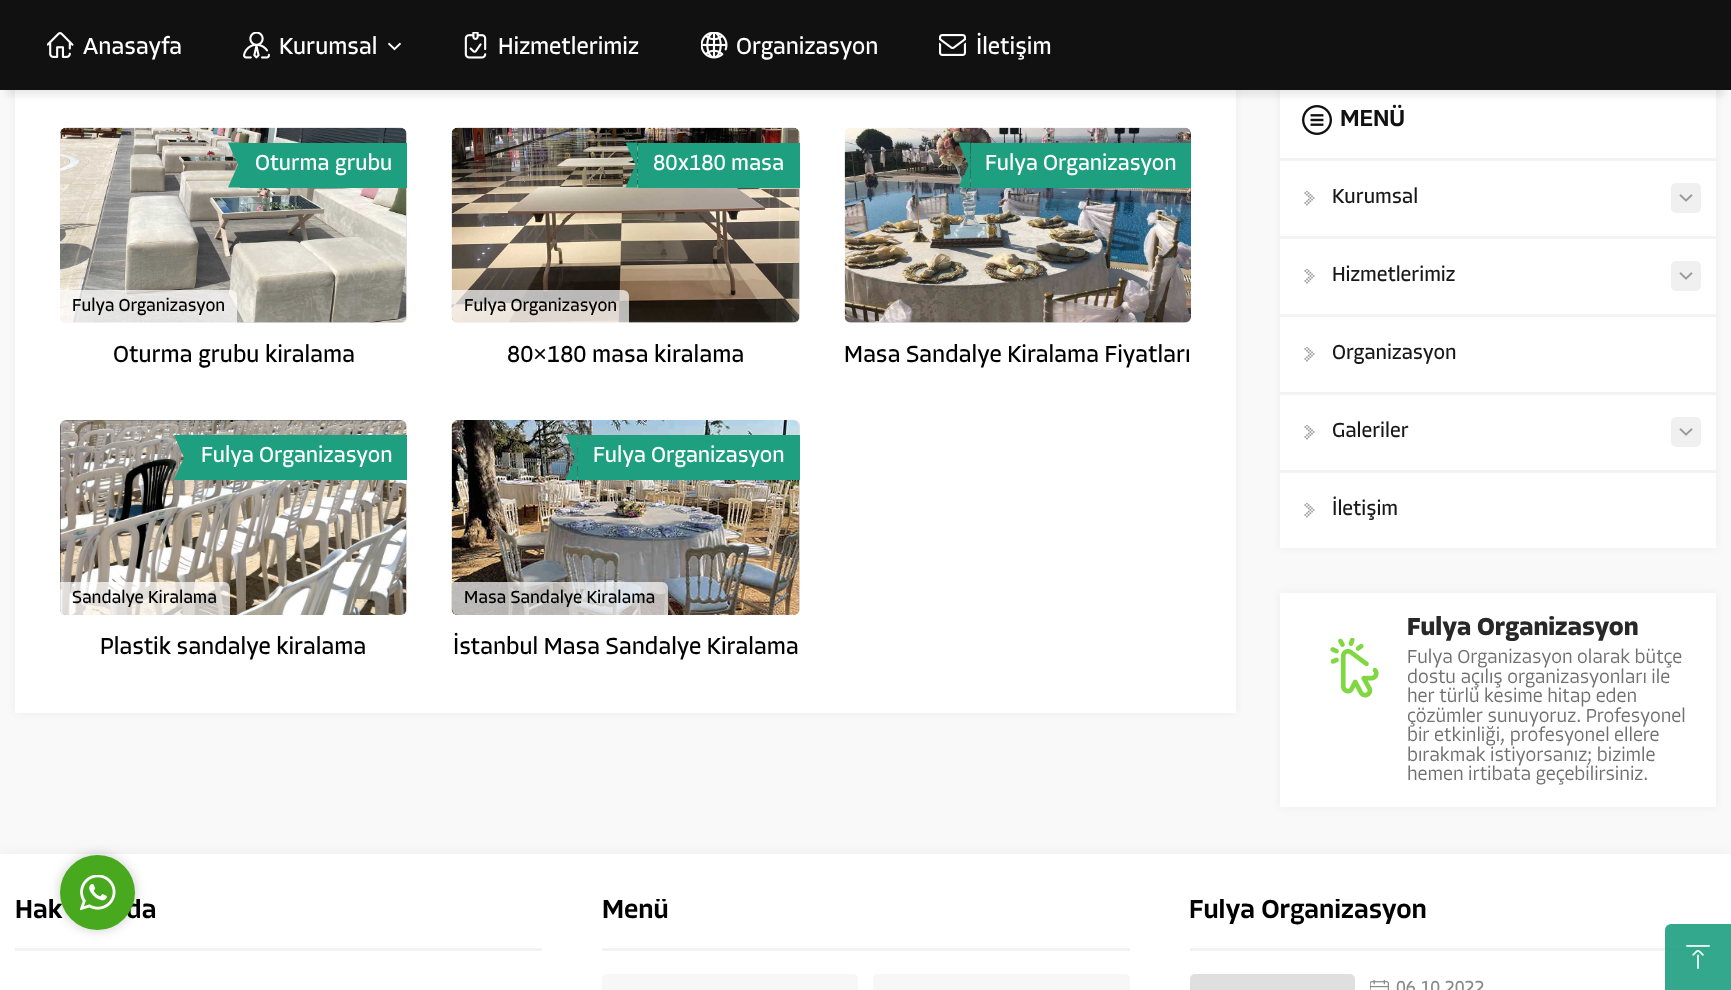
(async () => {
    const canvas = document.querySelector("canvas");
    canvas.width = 1731;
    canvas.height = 990;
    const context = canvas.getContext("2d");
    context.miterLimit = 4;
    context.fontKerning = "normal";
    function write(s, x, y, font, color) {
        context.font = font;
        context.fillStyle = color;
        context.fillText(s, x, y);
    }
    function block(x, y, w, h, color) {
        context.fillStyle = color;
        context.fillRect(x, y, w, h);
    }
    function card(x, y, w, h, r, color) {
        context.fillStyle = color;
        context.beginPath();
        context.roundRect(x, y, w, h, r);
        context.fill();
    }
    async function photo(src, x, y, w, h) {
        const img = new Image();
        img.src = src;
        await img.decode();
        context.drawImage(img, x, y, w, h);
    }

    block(0, 0, 1731, 990, "rgb(249, 249, 249)");
    context.fillStyle = "rgba(0, 0, 0, 0.05)";
    context.filter = "blur(4px)";
    context.beginPath();
    context.rect(15, 83, 1221, 630);
    context.fill();
    context.filter = "none";
    block(15, 90, 1221, 623, "rgb(255, 255, 255)");
    context.fillStyle = "rgba(0, 0, 0, 0.05)";
    context.filter = "blur(4px)";
    context.beginPath();
    context.rect(1280, 83, 436, 465);
    context.fill();
    context.filter = "none";
    block(1280, 90, 436, 458, "rgb(255, 255, 255)");
    await photo("media/12.png", 1302, 105, 30, 30);
    context.fillStyle = "rgba(0, 0, 0, 0.08)";
    context.filter = "blur(3px)";
    context.beginPath();
    context.rect(6, 18, 1719, 78);
    context.fill();
    context.filter = "none";
    block(0, 0, 1731, 90, "rgb(17, 17, 17)");
    await photo("media/1.png", 47, 32, 27, 26);
    write("Anasayfa", 83, 54, "24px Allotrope", "rgb(255, 255, 255)");
    await photo("media/2.png", 243, 32, 27, 27);
    write("Kurumsal", 279, 54, "24px Allotrope", "rgb(255, 255, 255)");
    await photo("media/3.png", 388, 42, 13, 9);
    await photo("media/4.png", 464, 32, 23, 27);
    write("Hizmetlerimiz", 498, 54, "24px Allotrope", "rgb(255, 255, 255)");
    await photo("media/5.png", 701, 32, 27, 27);
    write("Organizasyon", 736, 54, "24px Allotrope", "rgb(255, 255, 255)");
    await photo("media/6.png", 939, 34, 27, 22);
    write("İletişim", 976, 54, "24px Allotrope", "rgb(255, 255, 255)");
    card(60, 128, 347, 195, 6, "rgb(223, 223, 223)");
    await photo("media/7.png", 60, 127, 347, 196);
    block(240, 143, 167, 45, "rgb(29, 159, 128)");
    context.beginPath();
    context.moveTo(228, 142.5);
    context.lineTo(240, 142.5);
    context.lineTo(240, 169.5);
    context.closePath();
    context.fill();
    write("Oturma grubu", 255, 170, "22.5px Allotrope", "rgb(255, 255, 255)");
    context.fillStyle = "rgb(29, 159, 128)";
    context.beginPath();
    context.moveTo(240, 187.5);
    context.lineTo(228, 187.5);
    context.lineTo(240, 160.5);
    context.closePath();
    context.fill();
    context.fillStyle = "rgba(255, 255, 255, 0.7)";
    context.beginPath();
    context.roundRect(60, 290, 177, 33, [0, 6, 0, 6]);
    context.fill();
    write("Fulya Organizasyon", 72, 311, "18px Allotrope", "rgb(0, 0, 0)");
    write("Oturma grubu kiralama", 113, 362, "24px Allotrope", "rgb(0, 0, 0)");
    card(452, 128, 348, 195, 6, "rgb(223, 223, 223)");
    await photo("media/8.png", 451, 127, 349, 196);
    block(638, 143, 162, 45, "rgb(29, 159, 128)");
    context.beginPath();
    context.moveTo(625.5, 142.5);
    context.lineTo(637.5, 142.5);
    context.lineTo(637.5, 169.5);
    context.closePath();
    context.fill();
    write("80x180 masa", 653, 170, "22.5px Allotrope", "rgb(255, 255, 255)");
    context.fillStyle = "rgb(29, 159, 128)";
    context.beginPath();
    context.moveTo(637.5, 187.5);
    context.lineTo(625.5, 187.5);
    context.lineTo(637.5, 160.5);
    context.closePath();
    context.fill();
    context.fillStyle = "rgba(255, 255, 255, 0.7)";
    context.beginPath();
    context.roundRect(452, 290, 177, 33, [0, 6, 0, 6]);
    context.fill();
    write("Fulya Organizasyon", 464, 311, "18px Allotrope", "rgb(0, 0, 0)");
    write("80", 507, 362, "24px Allotrope", "rgb(0, 0, 0)");
    write("×", 533, 362, "24px Liberation Sans", "rgb(0, 0, 0)");
    write("180 masa kiralama", 547, 362, "24px Allotrope", "rgb(0, 0, 0)");
    card(845, 128, 346, 195, 6, "rgb(223, 223, 223)");
    await photo("media/9.png", 844, 127, 347, 196);
    block(971, 143, 220, 45, "rgb(29, 159, 128)");
    context.beginPath();
    context.moveTo(958.5, 142.5);
    context.lineTo(970.5, 142.5);
    context.lineTo(970.5, 169.5);
    context.closePath();
    context.fill();
    write("Fulya Organizasyon", 985, 170, "22.5px Allotrope", "rgb(255, 255, 255)");
    context.fillStyle = "rgb(29, 159, 128)";
    context.beginPath();
    context.moveTo(970.5, 187.5);
    context.lineTo(958.5, 187.5);
    context.lineTo(970.5, 160.5);
    context.closePath();
    context.fill();
    write("Masa Sandalye Kiralama Fiyatları", 844, 362, "24px Allotrope", "rgb(0, 0, 0)");
    card(60, 420, 347, 195, 6, "rgb(223, 223, 223)");
    await photo("media/10.png", 60, 420, 347, 195);
    block(186, 435, 221, 45, "rgb(29, 159, 128)");
    context.beginPath();
    context.moveTo(174, 435);
    context.lineTo(186, 435);
    context.lineTo(186, 462);
    context.closePath();
    context.fill();
    write("Fulya Organizasyon", 201, 462, "22.5px Allotrope", "rgb(255, 255, 255)");
    context.fillStyle = "rgb(29, 159, 128)";
    context.beginPath();
    context.moveTo(186, 480);
    context.lineTo(174, 480);
    context.lineTo(186, 453);
    context.closePath();
    context.fill();
    context.fillStyle = "rgba(255, 255, 255, 0.7)";
    context.beginPath();
    context.roundRect(60, 582, 170, 33, [0, 6, 0, 6]);
    context.fill();
    write("Sandalye Kiralama", 72, 603, "18px Allotrope", "rgb(0, 0, 0)");
    write("Plastik sandalye kiralama", 100, 654, "24px Allotrope", "rgb(0, 0, 0)");
    card(452, 420, 348, 195, 6, "rgb(223, 223, 223)");
    await photo("media/11.png", 451, 420, 349, 195);
    block(578, 435, 222, 45, "rgb(29, 159, 128)");
    context.beginPath();
    context.moveTo(565.5, 435);
    context.lineTo(577.5, 435);
    context.lineTo(577.5, 462);
    context.closePath();
    context.fill();
    write("Fulya Organizasyon", 593, 462, "22.5px Allotrope", "rgb(255, 255, 255)");
    context.fillStyle = "rgb(29, 159, 128)";
    context.beginPath();
    context.moveTo(577.5, 480);
    context.lineTo(565.5, 480);
    context.lineTo(577.5, 453);
    context.closePath();
    context.fill();
    context.fillStyle = "rgba(255, 255, 255, 0.7)";
    context.beginPath();
    context.roundRect(452, 582, 216, 33, [0, 6, 0, 6]);
    context.fill();
    write("Masa Sandalye Kiralama", 464, 603, "18px Allotrope", "rgb(0, 0, 0)");
    write("İstanbul Masa Sandalye Kiralama", 453, 654, "24px Allotrope", "rgb(0, 0, 0)");
    write("MENÜ", 1340, 126, "500 24px Allotrope", "rgb(17, 17, 17)");
    block(1280, 158, 436, 3, "rgb(243, 243, 243)");
    await photo("media/13.png", 1304, 191, 11, 15);
    write("Kurumsal", 1332, 203, "21px Allotrope", "rgb(24, 24, 24)");
    card(1671, 183, 30, 30, 5, "rgb(240, 240, 240)");
    await photo("media/14.png", 1679, 194, 14, 8);
    block(1280, 236, 436, 3, "rgb(243, 243, 243)");
    await photo("media/13.png", 1304, 269, 11, 15);
    write("Hizmetlerimiz", 1332, 281, "21px Allotrope", "rgb(24, 24, 24)");
    card(1671, 261, 30, 30, 5, "rgb(240, 240, 240)");
    await photo("media/14.png", 1679, 272, 14, 8);
    block(1280, 314, 436, 3, "rgb(243, 243, 243)");
    await photo("media/13.png", 1304, 347, 11, 15);
    write("Organizasyon", 1332, 359, "21px Allotrope", "rgb(24, 24, 24)");
    block(1280, 392, 436, 3, "rgb(243, 243, 243)");
    await photo("media/13.png", 1304, 425, 11, 15);
    write("Galeriler", 1332, 437, "21px Allotrope", "rgb(24, 24, 24)");
    card(1671, 417, 30, 30, 5, "rgb(240, 240, 240)");
    await photo("media/14.png", 1679, 428, 14, 8);
    block(1280, 470, 436, 3, "rgb(243, 243, 243)");
    await photo("media/13.png", 1304, 503, 11, 15);
    write("İletişim", 1332, 515, "21px Allotrope", "rgb(24, 24, 24)");
    context.fillStyle = "rgba(0, 0, 0, 0.05)";
    context.filter = "blur(4px)";
    context.beginPath();
    context.rect(1280, 593, 436, 214);
    context.fill();
    context.filter = "none";
    block(1280, 593, 436, 214, "rgb(255, 255, 255)");
    await photo("media/15.png", 1330, 638, 49, 60);
    write("Fulya Organizasyon", 1407, 635, "bold 25.5px Allotrope", "rgb(40, 40, 40)");
    write("Fulya Organizasyon olarak bütçe", 1407, 663, "300 19.5px Allotrope", "rgb(112, 112, 112)");
    write("dostu açılış organizasyonları ile", 1407, 683, "300 19.5px Allotrope", "rgb(112, 112, 112)");
    write("her türlü kesime hitap eden", 1407, 702, "300 19.5px Allotrope", "rgb(112, 112, 112)");
    write("çözümler sunuyoruz. Profesyonel", 1407, 722, "300 19.5px Allotrope", "rgb(112, 112, 112)");
    write("bir etkinliği, profesyonel ellere", 1407, 741, "300 19.5px Allotrope", "rgb(112, 112, 112)");
    write("bırakmak istiyorsanız; bizimle", 1407, 761, "300 19.5px Allotrope", "rgb(112, 112, 112)");
    write("hemen irtibata geçebilirsiniz.", 1407, 780, "300 19.5px Allotrope", "rgb(112, 112, 112)");
    context.fillStyle = "rgba(0, 0, 0, 0.05)";
    context.filter = "blur(7.5px)";
    context.beginPath();
    context.rect(0, 854, 1731, 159);
    context.fill();
    context.filter = "none";
    block(0, 854, 1731, 136, "rgb(255, 255, 255)");
    block(15, 948, 527, 3, "rgb(243, 243, 243)");
    context.fillStyle = "rgba(0, 0, 0, 0.2)";
    context.filter = "blur(6px)";
    context.beginPath();
    context.roundRect(60, 855, 75, 75, 37.5);
    context.fill();
    context.filter = "none";
    context.save();
    context.beginPath();
    context.rect(0, 899, 1731, 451);
    context.clip();
    write("Hak", 15, 918, "500 27px Allotrope", "rgb(0, 0, 0)");
    write("da", 126, 918, "500 27px Allotrope", "rgb(0, 0, 0)");
    context.restore();
    context.fillStyle = "rgb(72, 169, 31)";
    context.beginPath();
    context.arc(97.5, 892.5, 37.5, 0, Math.PI * 2);
    context.fill();
    await photo("media/16.png", 80, 875, 36, 36);
    block(602, 948, 528, 3, "rgb(243, 243, 243)");
    context.save();
    context.beginPath();
    context.rect(0, 899, 1731, 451);
    context.clip();
    write("Menü", 602, 918, "500 27px Allotrope", "rgb(0, 0, 0)");
    context.restore();
    card(602, 974, 256, 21, 5, "rgb(247, 247, 247)");
    card(873, 974, 257, 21, 5, "rgb(247, 247, 247)");
    block(1190, 948, 526, 3, "rgb(243, 243, 243)");
    context.save();
    context.beginPath();
    context.rect(0, 899, 1731, 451);
    context.clip();
    write("Fulya Organizasyon", 1189, 918, "500 27px Allotrope", "rgb(0, 0, 0)");
    context.restore();
    card(1190, 974, 165, 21, 5, "rgb(223, 223, 223)");
    await photo("media/17.png", 1370, 980, 19, 10);
    write("06.10.2022", 1396, 993, "18px Allotrope", "rgb(137, 137, 137)");
    context.fillStyle = "rgba(29, 159, 128, 0.9)";
    context.beginPath();
    context.roundRect(1665, 924, 66, 66, [6, 0, 0, 0]);
    context.fill();
    await photo("media/18.png", 1686, 945, 24, 24);
})();
